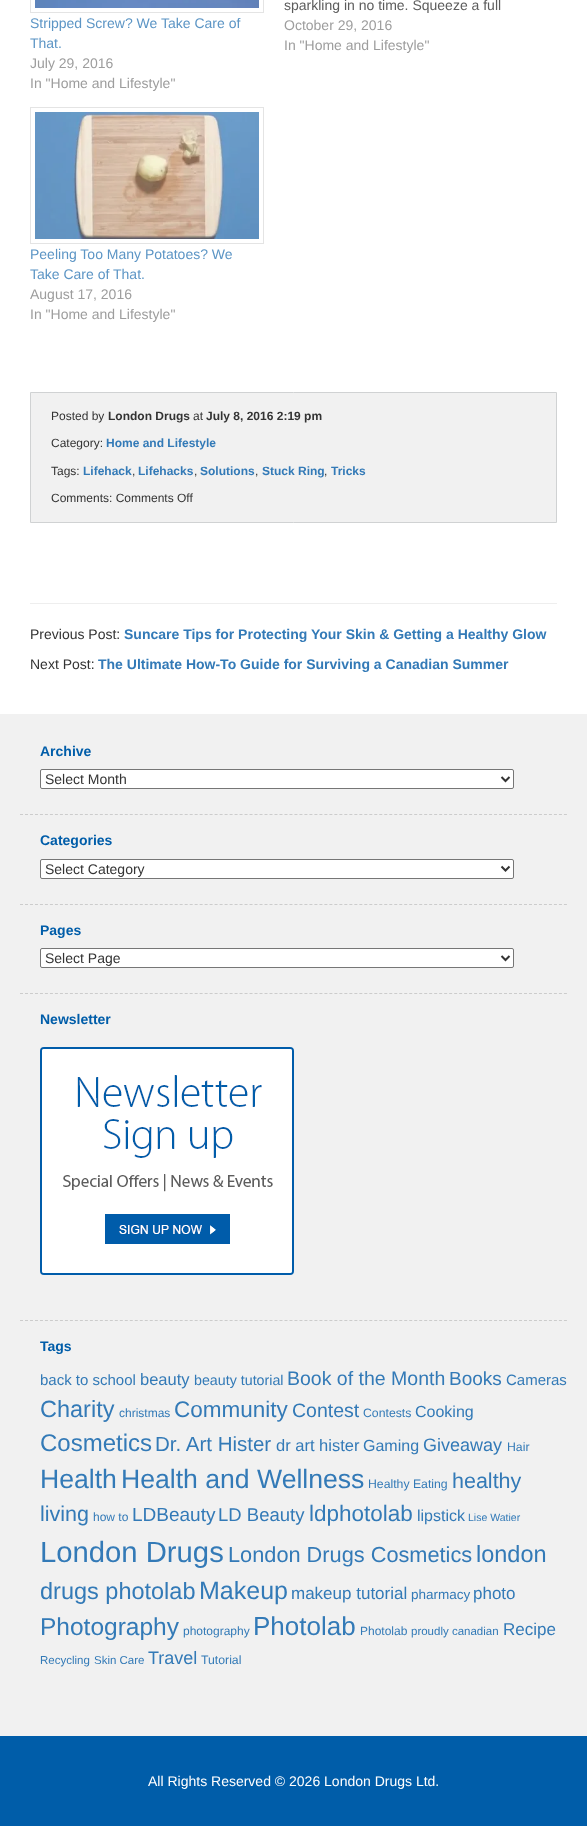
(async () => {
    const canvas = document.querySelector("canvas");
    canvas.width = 587;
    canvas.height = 1826;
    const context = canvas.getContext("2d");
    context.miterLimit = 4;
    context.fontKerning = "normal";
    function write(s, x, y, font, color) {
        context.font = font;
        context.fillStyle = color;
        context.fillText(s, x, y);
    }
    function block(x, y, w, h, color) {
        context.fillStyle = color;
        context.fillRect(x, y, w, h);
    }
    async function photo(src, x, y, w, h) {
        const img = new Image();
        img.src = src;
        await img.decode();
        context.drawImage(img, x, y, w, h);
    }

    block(0, 0, 587, 1826, "rgb(255, 255, 255)");
    context.strokeStyle = "rgb(228, 228, 228)";
    context.strokeRect(30.5, -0.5, 233, 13);
    await photo("media/1.png", 35, 0, 224, 8);
    write("Stripped Screw? We Take Care of", 30, 28, "14px Liberation Sans", "rgb(92, 149, 197)");
    write("That.", 30, 48, "14px Liberation Sans", "rgb(92, 149, 197)");
    write("July 29, 2016", 30, 68, "14px Liberation Sans", "rgb(157, 157, 157)");
    write("In \"Home and Lifestyle\"", 30, 88, "14px Liberation Sans", "rgb(157, 157, 157)");
    write("sparkling in no time. Squeeze a full", 284, 10, "14px Liberation Sans", "rgb(92, 92, 92)");
    write("October 29, 2016", 284, 30, "14px Liberation Sans", "rgb(157, 157, 157)");
    write("In \"Home and Lifestyle\"", 284, 50, "14px Liberation Sans", "rgb(157, 157, 157)");
    context.strokeRect(30.5, 107.5, 233, 136);
    await photo("media/2.png", 35, 112, 224, 127);
    write("Peeling Too Many Potatoes? We", 30, 259, "14px Liberation Sans", "rgb(92, 149, 197)");
    write("Take Care of That.", 30, 279, "14px Liberation Sans", "rgb(92, 149, 197)");
    write("August 17, 2016", 30, 299, "14px Liberation Sans", "rgb(157, 157, 157)");
    write("In \"Home and Lifestyle\"", 30, 319, "14px Liberation Sans", "rgb(157, 157, 157)");
    context.fillStyle = "rgb(241, 241, 241)";
    context.beginPath();
    context.rect(30.5, 392.5, 526, 130);
    context.fill();
    context.strokeStyle = "rgb(208, 210, 211)";
    context.stroke();
    write("Posted by", 51, 420, "12px Liberation Sans", "rgb(51, 51, 51)");
    write("London Drugs", 108, 420, "bold 12px Liberation Sans", "rgb(51, 51, 51)");
    write("at", 193, 420, "12px Liberation Sans", "rgb(51, 51, 51)");
    write("July 8, 2016 2:19 pm", 206, 420, "bold 12px Liberation Sans", "rgb(51, 51, 51)");
    write("Category:", 51, 447, "12px Liberation Sans", "rgb(51, 51, 51)");
    write("Home and Lifestyle", 106, 447, "bold 12px Liberation Sans", "rgb(51, 122, 183)");
    write("Tags:", 51, 475, "12px Liberation Sans", "rgb(51, 51, 51)");
    write("Lifehack", 83, 475, "bold 12px Liberation Sans", "rgb(51, 122, 183)");
    write(",", 132, 475, "12px Liberation Sans", "rgb(51, 51, 51)");
    write("Lifehacks", 138, 475, "bold 12px Liberation Sans", "rgb(51, 122, 183)");
    write(",", 194, 475, "12px Liberation Sans", "rgb(51, 51, 51)");
    write("Solutions", 200, 475, "bold 12px Liberation Sans", "rgb(51, 122, 183)");
    write(",", 255, 475, "12px Liberation Sans", "rgb(51, 51, 51)");
    write("Stuck Ring", 262, 475, "bold 12px Liberation Sans", "rgb(51, 122, 183)");
    write(",", 324, 475, "12px Liberation Sans", "rgb(51, 51, 51)");
    write("Tricks", 331, 475, "bold 12px Liberation Sans", "rgb(51, 122, 183)");
    write("Comments: Comments Off", 51, 502, "12px Liberation Sans", "rgb(51, 51, 51)");
    block(30, 603, 527, 1, "rgb(238, 238, 238)");
    write("Previous Post:", 30, 639, "14px Liberation Sans", "rgb(51, 51, 51)");
    write("Suncare Tips for Protecting Your Skin & Getting a Healthy Glow", 124, 639, "bold 14px Liberation Sans", "rgb(51, 122, 183)");
    write("Next Post:", 30, 669, "14px Liberation Sans", "rgb(51, 51, 51)");
    write("The Ultimate How-To Guide for Surviving a Canadian Summer", 98, 669, "bold 14px Liberation Sans", "rgb(51, 122, 183)");
    block(0, 714, 587, 1022, "rgb(241, 241, 241)");
    context.beginPath();
    context.moveTo(20, 814.5);
    context.lineTo(567, 814.5);
    context.strokeStyle = "rgb(204, 204, 204)";
    context.setLineDash([3, 1.99]);
    context.stroke();
    write("Archive", 40, 756, "bold 14px Liberation Sans", "rgb(0, 93, 169)");
    context.fillStyle = "rgb(255, 255, 255)";
    context.beginPath();
    context.roundRect(40.5, 769.5, 473, 19, 1.5);
    context.fill();
    context.strokeStyle = "rgb(118, 118, 118)";
    context.setLineDash([]);
    context.stroke();
    context.beginPath();
    context.moveTo(501.5, 777);
    context.lineTo(505.5, 781);
    context.lineTo(509.5, 777);
    context.strokeStyle = "rgb(51, 51, 51)";
    context.lineWidth = 2;
    context.stroke();
    write("Select Month", 45, 784, "14px Liberation Sans", "rgb(51, 51, 51)");
    context.beginPath();
    context.moveTo(20, 904.5);
    context.lineTo(567, 904.5);
    context.strokeStyle = "rgb(204, 204, 204)";
    context.lineWidth = 1;
    context.setLineDash([3, 1.99]);
    context.stroke();
    write("Categories", 40, 845, "bold 14px Liberation Sans", "rgb(0, 93, 169)");
    context.fillStyle = "rgb(255, 255, 255)";
    context.beginPath();
    context.roundRect(40.5, 859.5, 473, 19, 1.5);
    context.fill();
    context.strokeStyle = "rgb(118, 118, 118)";
    context.setLineDash([]);
    context.stroke();
    context.beginPath();
    context.moveTo(501.5, 866.5);
    context.lineTo(505.5, 870.5);
    context.lineTo(509.5, 866.5);
    context.strokeStyle = "rgb(51, 51, 51)";
    context.lineWidth = 2;
    context.stroke();
    write("Select Category", 45, 874, "14px Liberation Sans", "rgb(51, 51, 51)");
    context.beginPath();
    context.moveTo(20, 993.5);
    context.lineTo(567, 993.5);
    context.strokeStyle = "rgb(204, 204, 204)";
    context.lineWidth = 1;
    context.setLineDash([3, 1.99]);
    context.stroke();
    write("Pages", 40, 935, "bold 14px Liberation Sans", "rgb(0, 93, 169)");
    context.fillStyle = "rgb(255, 255, 255)";
    context.beginPath();
    context.roundRect(40.5, 948.5, 473, 19, 1.5);
    context.fill();
    context.strokeStyle = "rgb(118, 118, 118)";
    context.setLineDash([]);
    context.stroke();
    context.beginPath();
    context.moveTo(501.5, 956);
    context.lineTo(505.5, 960);
    context.lineTo(509.5, 956);
    context.strokeStyle = "rgb(51, 51, 51)";
    context.lineWidth = 2;
    context.stroke();
    write("Select Page", 45, 963, "14px Liberation Sans", "rgb(51, 51, 51)");
    context.beginPath();
    context.moveTo(20, 1320.5);
    context.lineTo(567, 1320.5);
    context.strokeStyle = "rgb(204, 204, 204)";
    context.lineWidth = 1;
    context.setLineDash([3, 1.99]);
    context.stroke();
    write("Newsletter", 40, 1024, "bold 14px Liberation Sans", "rgb(0, 93, 169)");
    context.beginPath();
    context.roundRect(41, 1048, 252, 226, 3);
    context.strokeStyle = "rgb(0, 92, 170)";
    context.lineWidth = 2;
    context.setLineDash([]);
    context.stroke();
    await photo("media/3.png", 42, 1049, 250, 224);
    write("Tags", 40, 1351, "bold 14px Liberation Sans", "rgb(0, 93, 169)");
    write("back to school", 40, 1385, "15px Liberation Sans", "rgb(51, 122, 183)");
    write("beauty", 140, 1385, "16.5px Liberation Sans", "rgb(51, 122, 183)");
    write("beauty tutorial", 194, 1385, "14.25px Liberation Sans", "rgb(51, 122, 183)");
    write("Book of the Month", 287, 1385, "19.5px Liberation Sans", "rgb(51, 122, 183)");
    write("Books", 449, 1385, "19px Liberation Sans", "rgb(51, 122, 183)");
    write("Cameras", 506, 1385, "15px Liberation Sans", "rgb(51, 122, 183)");
    write("Charity", 40, 1417, "23.5px Liberation Sans", "rgb(51, 122, 183)");
    write("christmas", 119, 1417, "12px Liberation Sans", "rgb(51, 122, 183)");
    write("Community", 174, 1417, "22.5px Liberation Sans", "rgb(51, 122, 183)");
    write("Contest", 292, 1417, "19.5px Liberation Sans", "rgb(51, 122, 183)");
    write("Contests", 363, 1417, "12.25px Liberation Sans", "rgb(51, 122, 183)");
    write("Cooking", 415, 1417, "16px Liberation Sans", "rgb(51, 122, 183)");
    write("Cosmetics", 40, 1451, "24px Liberation Sans", "rgb(51, 122, 183)");
    write("Dr. Art Hister", 155, 1451, "20.5px Liberation Sans", "rgb(51, 122, 183)");
    write("dr art hister", 276, 1451, "16.5px Liberation Sans", "rgb(51, 122, 183)");
    write("Gaming", 363, 1451, "16px Liberation Sans", "rgb(51, 122, 183)");
    write("Giveaway", 423, 1451, "18px Liberation Sans", "rgb(51, 122, 183)");
    write("Hair", 507, 1451, "12.25px Liberation Sans", "rgb(51, 122, 183)");
    write("Health", 40, 1488, "26.6px Liberation Sans", "rgb(51, 122, 183)");
    write("Health and Wellness", 121, 1488, "26.6px Liberation Sans", "rgb(51, 122, 183)");
    write("Healthy Eating", 368, 1488, "12.25px Liberation Sans", "rgb(51, 122, 183)");
    write("healthy", 452, 1488, "21.5px Liberation Sans", "rgb(51, 122, 183)");
    write("living", 40, 1521, "21.5px Liberation Sans", "rgb(51, 122, 183)");
    write("how to", 93, 1521, "12px Liberation Sans", "rgb(51, 122, 183)");
    write("LDBeauty", 132, 1521, "19px Liberation Sans", "rgb(51, 122, 183)");
    write("LD Beauty", 218, 1521, "18.5px Liberation Sans", "rgb(51, 122, 183)");
    write("ldphotolab", 309, 1521, "22.5px Liberation Sans", "rgb(51, 122, 183)");
    write("lipstick", 417, 1521, "16px Liberation Sans", "rgb(51, 122, 183)");
    write("Lise Watier", 468, 1521, "10.5px Liberation Sans", "rgb(51, 122, 183)");
    write("London Drugs", 40, 1562, "29.25px Liberation Sans", "rgb(51, 122, 183)");
    write("London Drugs Cosmetics", 228, 1562, "21.75px Liberation Sans", "rgb(51, 122, 183)");
    write("london", 476, 1562, "23.5px Liberation Sans", "rgb(51, 122, 183)");
    write("drugs photolab", 40, 1599, "23.5px Liberation Sans", "rgb(51, 122, 183)");
    write("Makeup", 199, 1599, "25px Liberation Sans", "rgb(51, 122, 183)");
    write("makeup tutorial", 291, 1599, "17px Liberation Sans", "rgb(51, 122, 183)");
    write("pharmacy", 411, 1599, "13.5px Liberation Sans", "rgb(51, 122, 183)");
    write("photo", 473, 1599, "17px Liberation Sans", "rgb(51, 122, 183)");
    write("Photography", 40, 1635, "24.5px Liberation Sans", "rgb(51, 122, 183)");
    write("photography", 183, 1635, "12px Liberation Sans", "rgb(51, 122, 183)");
    write("Photolab", 253, 1635, "26px Liberation Sans", "rgb(51, 122, 183)");
    write("Photolab", 360, 1635, "12px Liberation Sans", "rgb(51, 122, 183)");
    write("proudly canadian", 411, 1635, "11.5px Liberation Sans", "rgb(51, 122, 183)");
    write("Recipe", 503, 1635, "17px Liberation Sans", "rgb(51, 122, 183)");
    write("Recycling", 40, 1664, "11.5px Liberation Sans", "rgb(51, 122, 183)");
    write("Skin Care", 94, 1664, "11.5px Liberation Sans", "rgb(51, 122, 183)");
    write("Travel", 148, 1664, "18px Liberation Sans", "rgb(51, 122, 183)");
    write("Tutorial", 201, 1664, "12.25px Liberation Sans", "rgb(51, 122, 183)");
    block(0, 1736, 587, 90, "rgb(0, 93, 169)");
    write("All Rights Reserved © 2026 London Drugs Ltd.", 148, 1786, "14px Liberation Sans", "rgb(255, 255, 255)");
})();
